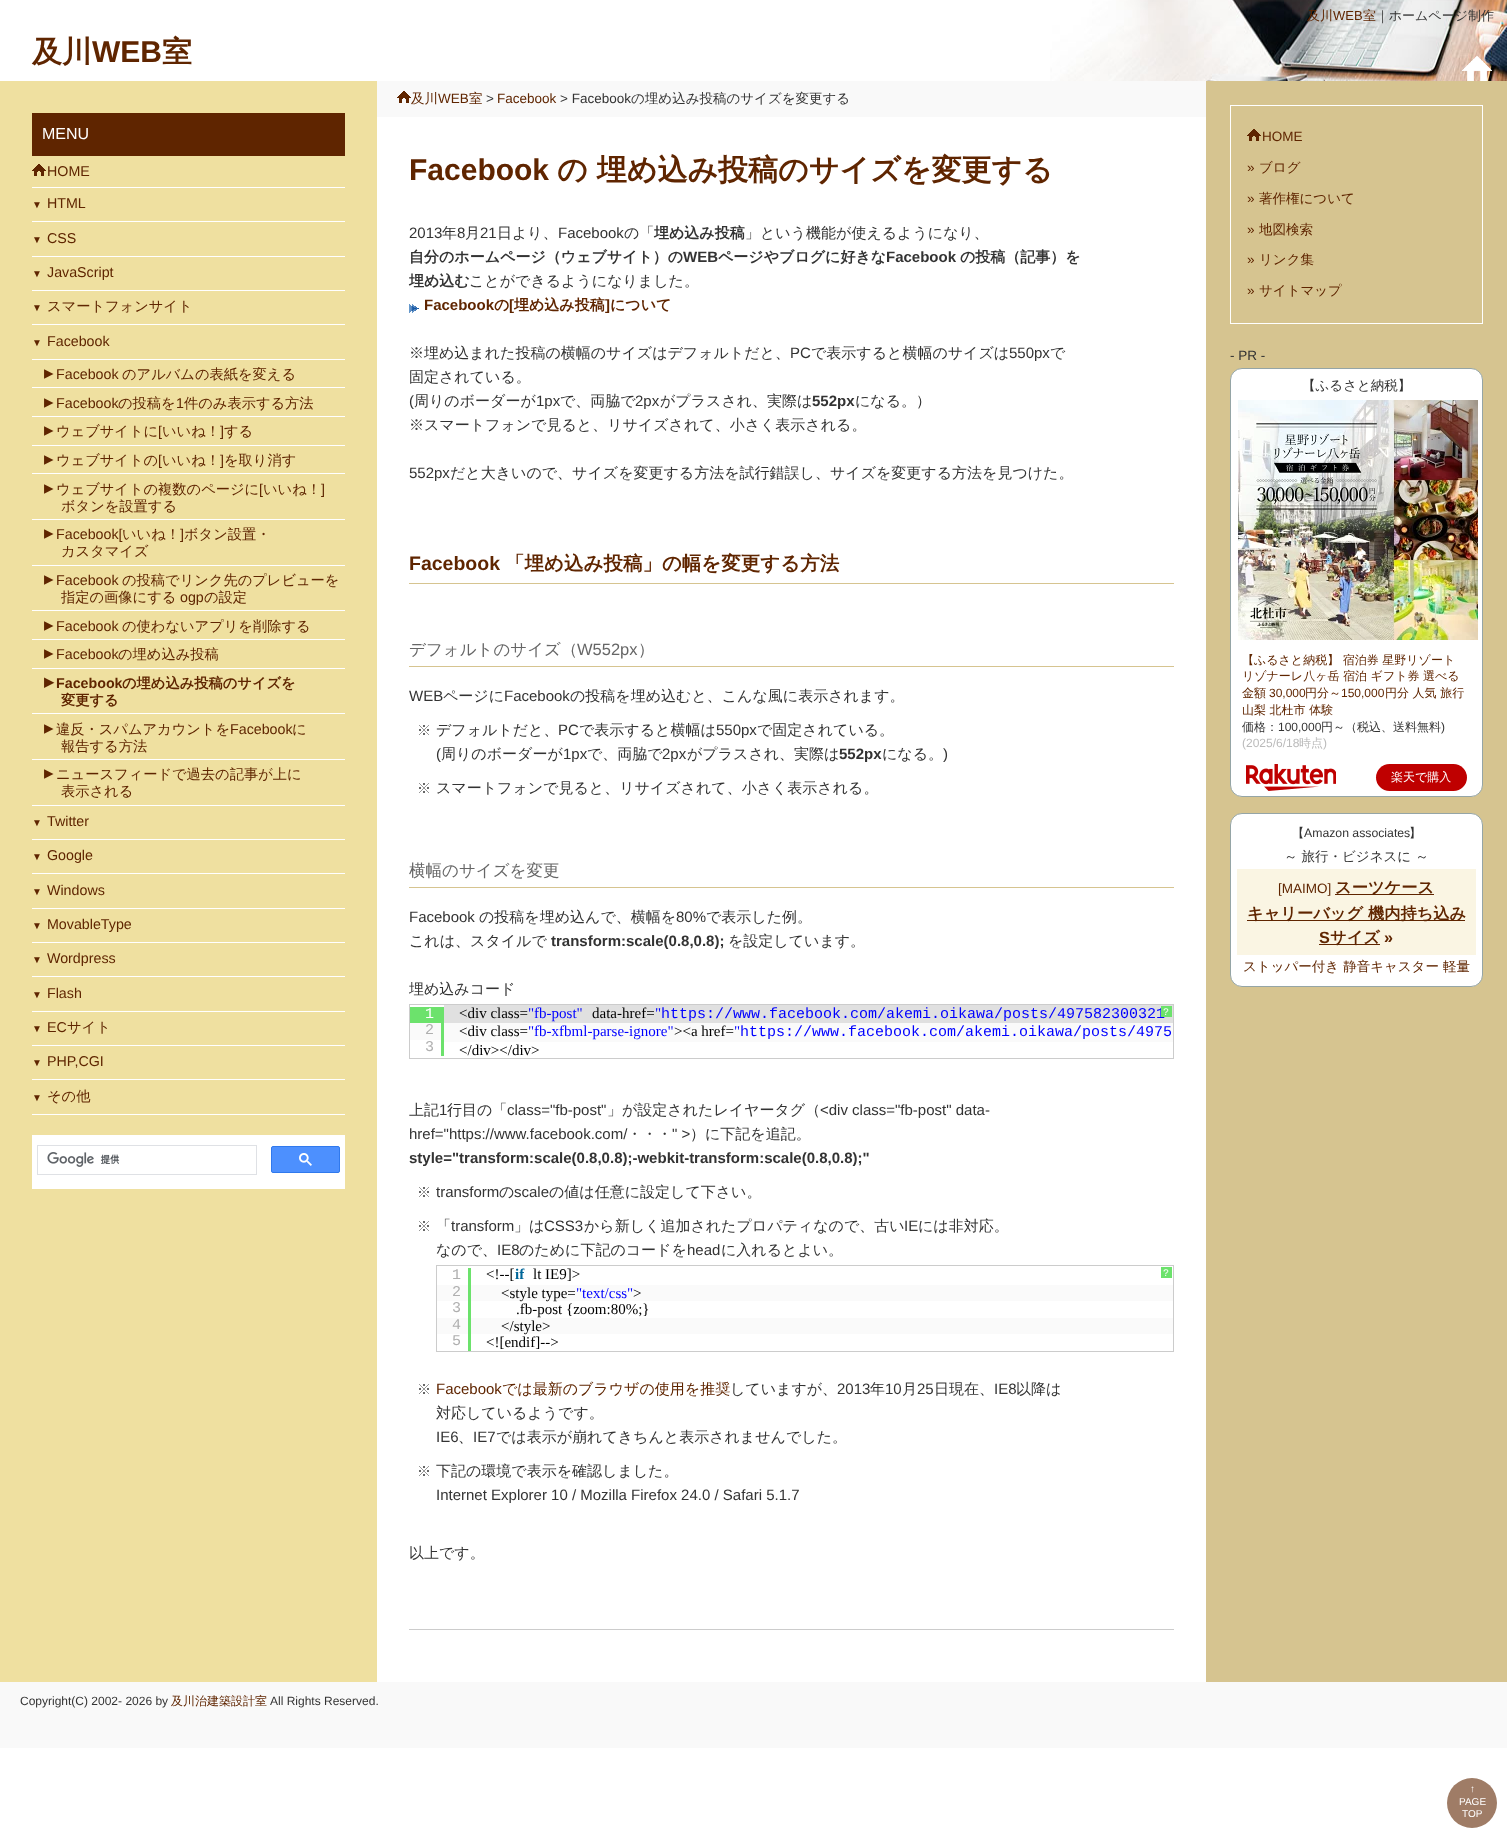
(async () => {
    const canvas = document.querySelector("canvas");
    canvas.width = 1507;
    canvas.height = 1838;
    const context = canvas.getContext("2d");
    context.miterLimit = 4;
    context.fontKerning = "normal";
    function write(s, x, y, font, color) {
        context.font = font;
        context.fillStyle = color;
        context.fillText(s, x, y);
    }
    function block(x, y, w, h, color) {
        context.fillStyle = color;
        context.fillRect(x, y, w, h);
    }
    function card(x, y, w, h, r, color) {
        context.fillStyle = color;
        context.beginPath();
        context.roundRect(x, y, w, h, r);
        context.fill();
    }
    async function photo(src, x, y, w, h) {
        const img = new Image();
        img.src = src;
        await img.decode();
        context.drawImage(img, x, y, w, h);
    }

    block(0, 0, 1507, 1838, "rgb(255, 255, 255)");
    await photo("media/1.png", 1050, 0, 457, 81);
    write("及川", 1307, 20, "500 13px WenQuanYi Zen Hei", "rgb(95, 37, 0)");
    write("WEB", 1333, 20, "13px Liberation Sans", "rgb(95, 37, 0)");
    write("室", 1363, 20, "500 13px WenQuanYi Zen Hei", "rgb(95, 37, 0)");
    write("｜ホームページ制作", 1376, 20, "500 13px WenQuanYi Zen Hei", "rgb(51, 51, 51)");
    write("及川", 32, 62, "bold 30px WenQuanYi Zen Hei", "rgb(95, 37, 0)");
    write("WEB", 92, 62, "bold 30px Liberation Sans", "rgb(95, 37, 0)");
    write("室", 162, 62, "bold 30px WenQuanYi Zen Hei", "rgb(95, 37, 0)");
    await photo("media/2.png", 1462, 56, 30, 25);
    block(0, 81, 377, 1601, "rgb(239, 224, 160)");
    block(32, 113, 313, 43, "rgb(95, 37, 0)");
    write("MENU", 42, 139, "16px Liberation Sans", "rgb(255, 255, 255)");
    block(32, 187, 313, 1, "rgb(255, 255, 255)");
    await photo("media/3.png", 32, 164, 14, 12);
    write("HOME", 47, 176, "14.25px Liberation Sans", "rgb(95, 37, 0)");
    block(32, 221, 313, 1, "rgb(255, 255, 255)");
    write("▼", 32, 208, "10px Liberation Sans", "rgb(95, 37, 0)");
    write("HTML", 47, 208, "14.25px Liberation Sans", "rgb(95, 37, 0)");
    block(32, 256, 313, 1, "rgb(255, 255, 255)");
    write("▼", 32, 243, "10px Liberation Sans", "rgb(95, 37, 0)");
    write("CSS", 47, 243, "14.25px Liberation Sans", "rgb(95, 37, 0)");
    block(32, 290, 313, 1, "rgb(255, 255, 255)");
    write("▼", 32, 277, "10px Liberation Sans", "rgb(95, 37, 0)");
    write("JavaScript", 47, 277, "14.25px Liberation Sans", "rgb(95, 37, 0)");
    block(32, 324, 313, 1, "rgb(255, 255, 255)");
    write("▼", 32, 311, "10px Liberation Sans", "rgb(95, 37, 0)");
    write("スマートフォンサイト", 47, 311, "500 14.25px WenQuanYi Zen Hei", "rgb(95, 37, 0)");
    block(32, 359, 313, 1, "rgb(255, 255, 255)");
    write("▼", 32, 346, "10px Liberation Sans", "rgb(95, 37, 0)");
    write("Facebook", 47, 346, "14.25px Liberation Sans", "rgb(95, 37, 0)");
    block(32, 387, 313, 1, "rgb(255, 255, 255)");
    write("▸", 44, 379, "19px DejaVu Sans", "rgb(95, 37, 0)");
    write("Facebook", 56, 379, "14.25px Liberation Sans", "rgb(95, 37, 0)");
    write("のアルバムの表紙を変える", 122, 379, "500 14.25px WenQuanYi Zen Hei", "rgb(95, 37, 0)");
    block(32, 416, 313, 1, "rgb(255, 255, 255)");
    write("▸", 44, 408, "19px DejaVu Sans", "rgb(95, 37, 0)");
    write("Facebook", 56, 408, "14.25px Liberation Sans", "rgb(95, 37, 0)");
    write("の投稿を", 118, 408, "500 14.25px WenQuanYi Zen Hei", "rgb(95, 37, 0)");
    write("1", 176, 408, "14.25px Liberation Sans", "rgb(95, 37, 0)");
    write("件のみ表示する方法", 184, 408, "500 14.25px WenQuanYi Zen Hei", "rgb(95, 37, 0)");
    block(32, 445, 313, 1, "rgb(255, 255, 255)");
    write("▸", 44, 436, "19px DejaVu Sans", "rgb(95, 37, 0)");
    write("ウェブサイトに", 56, 436, "500 14.25px WenQuanYi Zen Hei", "rgb(95, 37, 0)");
    write("[", 158, 436, "14.25px Liberation Sans", "rgb(95, 37, 0)");
    write("いいね！", 162, 436, "500 14.25px WenQuanYi Zen Hei", "rgb(95, 37, 0)");
    write("]", 220, 436, "14.25px Liberation Sans", "rgb(95, 37, 0)");
    write("する", 224, 436, "500 14.25px WenQuanYi Zen Hei", "rgb(95, 37, 0)");
    block(32, 473, 313, 1, "rgb(255, 255, 255)");
    write("▸", 44, 465, "19px DejaVu Sans", "rgb(95, 37, 0)");
    write("ウェブサイトの", 56, 465, "500 14.25px WenQuanYi Zen Hei", "rgb(95, 37, 0)");
    write("[", 158, 465, "14.25px Liberation Sans", "rgb(95, 37, 0)");
    write("いいね！", 162, 465, "500 14.25px WenQuanYi Zen Hei", "rgb(95, 37, 0)");
    write("]", 220, 465, "14.25px Liberation Sans", "rgb(95, 37, 0)");
    write("を取り消す", 224, 465, "500 14.25px WenQuanYi Zen Hei", "rgb(95, 37, 0)");
    block(32, 519, 313, 1, "rgb(255, 255, 255)");
    write("▸", 44, 494, "19px DejaVu Sans", "rgb(95, 37, 0)");
    write("ウェブサイトの複数のページに", 56, 494, "500 14.25px WenQuanYi Zen Hei", "rgb(95, 37, 0)");
    write("[", 259, 494, "14.25px Liberation Sans", "rgb(95, 37, 0)");
    write("いいね！", 263, 494, "500 14.25px WenQuanYi Zen Hei", "rgb(95, 37, 0)");
    write("]", 321, 494, "14.25px Liberation Sans", "rgb(95, 37, 0)");
    write("ボタンを設置する", 61, 511, "500 14.25px WenQuanYi Zen Hei", "rgb(95, 37, 0)");
    block(32, 565, 313, 1, "rgb(255, 255, 255)");
    write("▸", 44, 539, "19px DejaVu Sans", "rgb(95, 37, 0)");
    write("Facebook[", 56, 539, "14.25px Liberation Sans", "rgb(95, 37, 0)");
    write("いいね！", 122, 539, "500 14.25px WenQuanYi Zen Hei", "rgb(95, 37, 0)");
    write("]", 180, 539, "14.25px Liberation Sans", "rgb(95, 37, 0)");
    write("ボタン設置・", 184, 539, "500 14.25px WenQuanYi Zen Hei", "rgb(95, 37, 0)");
    write("カスタマイズ", 61, 556, "500 14.25px WenQuanYi Zen Hei", "rgb(95, 37, 0)");
    block(32, 610, 313, 1, "rgb(255, 255, 255)");
    write("▸", 44, 585, "19px DejaVu Sans", "rgb(95, 37, 0)");
    write("Facebook", 56, 585, "14.25px Liberation Sans", "rgb(95, 37, 0)");
    write("の投稿でリンク先のプレビューを", 122, 585, "500 14.25px WenQuanYi Zen Hei", "rgb(95, 37, 0)");
    write("指定の画像にする", 61, 602, "500 14.25px WenQuanYi Zen Hei", "rgb(95, 37, 0)");
    write("ogp", 180, 602, "14.25px Liberation Sans", "rgb(95, 37, 0)");
    write("の設定", 204, 602, "500 14.25px WenQuanYi Zen Hei", "rgb(95, 37, 0)");
    block(32, 639, 313, 1, "rgb(255, 255, 255)");
    write("▸", 44, 631, "19px DejaVu Sans", "rgb(95, 37, 0)");
    write("Facebook", 56, 631, "14.25px Liberation Sans", "rgb(95, 37, 0)");
    write("の使わないアプリを削除する", 122, 631, "500 14.25px WenQuanYi Zen Hei", "rgb(95, 37, 0)");
    block(32, 668, 313, 1, "rgb(255, 255, 255)");
    write("▸", 44, 659, "19px DejaVu Sans", "rgb(95, 37, 0)");
    write("Facebook", 56, 659, "14.25px Liberation Sans", "rgb(95, 37, 0)");
    write("の埋め込み投稿", 118, 659, "500 14.25px WenQuanYi Zen Hei", "rgb(95, 37, 0)");
    block(32, 713, 313, 1, "rgb(255, 255, 255)");
    write("▸", 44, 688, "bold 19px DejaVu Sans", "rgb(95, 37, 0)");
    write("Facebook", 56, 688, "bold 14.25px Liberation Sans", "rgb(95, 37, 0)");
    write("の埋め込み投稿のサイズを", 122, 688, "bold 14.25px WenQuanYi Zen Hei", "rgb(95, 37, 0)");
    write("変更する", 61, 705, "bold 14.25px WenQuanYi Zen Hei", "rgb(95, 37, 0)");
    block(32, 759, 313, 1, "rgb(255, 255, 255)");
    write("▸", 44, 734, "19px DejaVu Sans", "rgb(95, 37, 0)");
    write("違反・スパムアカウントを", 56, 734, "500 14.25px WenQuanYi Zen Hei", "rgb(95, 37, 0)");
    write("Facebook", 230, 734, "14.25px Liberation Sans", "rgb(95, 37, 0)");
    write("に", 292, 734, "500 14.25px WenQuanYi Zen Hei", "rgb(95, 37, 0)");
    write("報告する方法", 61, 751, "500 14.25px WenQuanYi Zen Hei", "rgb(95, 37, 0)");
    block(32, 805, 313, 1, "rgb(255, 255, 255)");
    write("▸", 44, 779, "19px DejaVu Sans", "rgb(95, 37, 0)");
    write("ニュースフィードで過去の記事が上に", 56, 779, "500 14.25px WenQuanYi Zen Hei", "rgb(95, 37, 0)");
    write("表示される", 61, 796, "500 14.25px WenQuanYi Zen Hei", "rgb(95, 37, 0)");
    block(32, 839, 313, 1, "rgb(255, 255, 255)");
    write("▼", 32, 826, "10px Liberation Sans", "rgb(95, 37, 0)");
    write("Twitter", 47, 826, "14.25px Liberation Sans", "rgb(95, 37, 0)");
    block(32, 873, 313, 1, "rgb(255, 255, 255)");
    write("▼", 32, 860, "10px Liberation Sans", "rgb(95, 37, 0)");
    write("Google", 47, 860, "14.25px Liberation Sans", "rgb(95, 37, 0)");
    block(32, 908, 313, 1, "rgb(255, 255, 255)");
    write("▼", 32, 895, "10px Liberation Sans", "rgb(95, 37, 0)");
    write("Windows", 47, 895, "14.25px Liberation Sans", "rgb(95, 37, 0)");
    block(32, 942, 313, 1, "rgb(255, 255, 255)");
    write("▼", 32, 929, "10px Liberation Sans", "rgb(95, 37, 0)");
    write("MovableType", 47, 929, "14.25px Liberation Sans", "rgb(95, 37, 0)");
    block(32, 976, 313, 1, "rgb(255, 255, 255)");
    write("▼", 32, 963, "10px Liberation Sans", "rgb(95, 37, 0)");
    write("Wordpress", 47, 963, "14.25px Liberation Sans", "rgb(95, 37, 0)");
    block(32, 1011, 313, 1, "rgb(255, 255, 255)");
    write("▼", 32, 998, "10px Liberation Sans", "rgb(95, 37, 0)");
    write("Flash", 47, 998, "14.25px Liberation Sans", "rgb(95, 37, 0)");
    block(32, 1045, 313, 1, "rgb(255, 255, 255)");
    write("▼", 32, 1032, "10px Liberation Sans", "rgb(95, 37, 0)");
    write("EC", 47, 1032, "14.25px Liberation Sans", "rgb(95, 37, 0)");
    write("サイト", 67, 1032, "500 14.25px WenQuanYi Zen Hei", "rgb(95, 37, 0)");
    block(32, 1079, 313, 1, "rgb(255, 255, 255)");
    write("▼", 32, 1066, "10px Liberation Sans", "rgb(95, 37, 0)");
    write("PHP,CGI", 47, 1066, "14.25px Liberation Sans", "rgb(95, 37, 0)");
    block(32, 1114, 313, 1, "rgb(255, 255, 255)");
    write("▼", 32, 1101, "10px Liberation Sans", "rgb(95, 37, 0)");
    write("その他", 47, 1101, "500 14.25px WenQuanYi Zen Hei", "rgb(95, 37, 0)");
    block(32, 1135, 313, 54, "rgb(255, 255, 255)");
    context.strokeStyle = "rgb(223, 225, 229)";
    context.strokeRect(37.5, 1145.5, 219, 29);
    await photo("media/4.png", 47, 1152, 73, 15);
    context.fillStyle = "rgb(77, 144, 254)";
    context.beginPath();
    context.roundRect(271.5, 1146.5, 68, 26, 1.5);
    context.fill();
    context.strokeStyle = "rgb(48, 121, 237)";
    context.stroke();
    await photo("media/5.png", 299, 1153, 13, 13);
    block(377, 81, 829, 36, "rgb(249, 249, 249)");
    await photo("media/6.png", 397, 91, 14, 12);
    write("及川", 411, 103, "500 13.5px WenQuanYi Zen Hei", "rgb(95, 37, 0)");
    write("WEB", 438, 103, "13.5px Liberation Sans", "rgb(95, 37, 0)");
    write("室", 469, 103, "500 13.5px WenQuanYi Zen Hei", "rgb(95, 37, 0)");
    write(">", 486, 103, "13.5px Liberation Sans", "rgb(51, 51, 51)");
    write("Facebook", 497, 103, "13.5px Liberation Sans", "rgb(95, 37, 0)");
    write("> Facebook", 560, 103, "13.5px Liberation Sans", "rgb(51, 51, 51)");
    write("の埋め込み投稿のサイズを変更する", 631, 103, "500 13.5px WenQuanYi Zen Hei", "rgb(51, 51, 51)");
    write("Facebook", 409, 180, "bold 30px Liberation Sans", "rgb(95, 37, 0)");
    write("の 埋め込み投稿のサイズを変更する", 557, 180, "bold 30px WenQuanYi Zen Hei", "rgb(95, 37, 0)");
    write("2013", 409, 238, "15px Liberation Sans", "rgb(51, 51, 51)");
    write("年", 442, 238, "500 15px WenQuanYi Zen Hei", "rgb(51, 51, 51)");
    write("8", 457, 238, "15px Liberation Sans", "rgb(51, 51, 51)");
    write("月", 465, 238, "500 15px WenQuanYi Zen Hei", "rgb(51, 51, 51)");
    write("21", 480, 238, "15px Liberation Sans", "rgb(51, 51, 51)");
    write("日より、", 497, 238, "500 15px WenQuanYi Zen Hei", "rgb(51, 51, 51)");
    write("Facebook", 558, 238, "15px Liberation Sans", "rgb(51, 51, 51)");
    write("の「", 624, 238, "500 15px WenQuanYi Zen Hei", "rgb(51, 51, 51)");
    write("埋め込み投稿", 654, 238, "bold 15px WenQuanYi Zen Hei", "rgb(51, 51, 51)");
    write("」という機能が使えるようになり、", 745, 238, "500 15px WenQuanYi Zen Hei", "rgb(51, 51, 51)");
    write("自分のホームページ（ウェブサイト）の", 409, 262, "bold 15px WenQuanYi Zen Hei", "rgb(51, 51, 51)");
    write("WEB", 683, 262, "bold 15px Liberation Sans", "rgb(51, 51, 51)");
    write("ページやブログに好きな", 718, 262, "bold 15px WenQuanYi Zen Hei", "rgb(51, 51, 51)");
    write("Facebook", 886, 262, "bold 15px Liberation Sans", "rgb(51, 51, 51)");
    write("の投稿（記事）を", 960, 262, "bold 15px WenQuanYi Zen Hei", "rgb(51, 51, 51)");
    write("埋め込む", 409, 286, "bold 15px WenQuanYi Zen Hei", "rgb(51, 51, 51)");
    write("ことができるようになりました。", 469, 286, "500 15px WenQuanYi Zen Hei", "rgb(51, 51, 51)");
    await photo("media/7.png", 409, 304, 10, 9);
    write("Facebook", 424, 310, "bold 15px Liberation Sans", "rgb(95, 37, 0)");
    write("の", 494, 310, "bold 15px WenQuanYi Zen Hei", "rgb(95, 37, 0)");
    write("[", 509, 310, "bold 15px Liberation Sans", "rgb(95, 37, 0)");
    write("埋め込み投稿", 514, 310, "bold 15px WenQuanYi Zen Hei", "rgb(95, 37, 0)");
    write("]", 605, 310, "bold 15px Liberation Sans", "rgb(95, 37, 0)");
    write("について", 610, 310, "bold 15px WenQuanYi Zen Hei", "rgb(95, 37, 0)");
    write("※埋め込まれた投稿の横幅のサイズはデフォルトだと、", 409, 358, "500 15px WenQuanYi Zen Hei", "rgb(51, 51, 51)");
    write("PC", 790, 358, "15px Liberation Sans", "rgb(51, 51, 51)");
    write("で表示すると横幅のサイズは", 811, 358, "500 15px WenQuanYi Zen Hei", "rgb(51, 51, 51)");
    write("550px", 1009, 358, "15px Liberation Sans", "rgb(51, 51, 51)");
    write("で", 1050, 358, "500 15px WenQuanYi Zen Hei", "rgb(51, 51, 51)");
    write("固定されている。", 409, 382, "500 15px WenQuanYi Zen Hei", "rgb(51, 51, 51)");
    write("(", 409, 406, "15px Liberation Sans", "rgb(51, 51, 51)");
    write("周りのボーダーが", 414, 406, "500 15px WenQuanYi Zen Hei", "rgb(51, 51, 51)");
    write("1px", 536, 406, "15px Liberation Sans", "rgb(51, 51, 51)");
    write("で、両脇で", 560, 406, "500 15px WenQuanYi Zen Hei", "rgb(51, 51, 51)");
    write("2px", 635, 406, "15px Liberation Sans", "rgb(51, 51, 51)");
    write("がプラスされ、実際は", 660, 406, "500 15px WenQuanYi Zen Hei", "rgb(51, 51, 51)");
    write("552px", 812, 406, "bold 15px Liberation Sans", "rgb(51, 51, 51)");
    write("になる。）", 855, 406, "500 15px WenQuanYi Zen Hei", "rgb(51, 51, 51)");
    write("※スマートフォンで見ると、リサイズされて、小さく表示される。", 409, 430, "500 15px WenQuanYi Zen Hei", "rgb(51, 51, 51)");
    write("552px", 409, 478, "15px Liberation Sans", "rgb(51, 51, 51)");
    write("だと大きいので、サイズを変更する方法を試行錯誤し、サイズを変更する方法を見つけた。", 450, 478, "500 15px WenQuanYi Zen Hei", "rgb(51, 51, 51)");
    block(409, 583, 765, 1, "rgb(214, 196, 144)");
    write("Facebook", 409, 570, "bold 19.5px Liberation Sans", "rgb(95, 37, 0)");
    write("「埋め込み投稿」の幅を変更する方法", 505, 570, "bold 19.5px WenQuanYi Zen Hei", "rgb(95, 37, 0)");
    block(409, 666, 765, 1, "rgb(214, 196, 144)");
    write("デフォルトのサイズ（", 409, 655, "500 16.5px WenQuanYi Zen Hei", "rgb(102, 102, 102)");
    write("W552px", 577, 655, "16.5px Liberation Sans", "rgb(102, 102, 102)");
    write("）", 638, 655, "500 16.5px WenQuanYi Zen Hei", "rgb(102, 102, 102)");
    write("WEB", 409, 701, "15px Liberation Sans", "rgb(51, 51, 51)");
    write("ページに", 443, 701, "500 15px WenQuanYi Zen Hei", "rgb(51, 51, 51)");
    write("Facebook", 504, 701, "15px Liberation Sans", "rgb(51, 51, 51)");
    write("の投稿を埋め込むと、こんな風に表示されます。", 570, 701, "500 15px WenQuanYi Zen Hei", "rgb(51, 51, 51)");
    await photo("media/8.png", 419, 725, 10, 10);
    write("デフォルトだと、", 436, 735, "500 15px WenQuanYi Zen Hei", "rgb(51, 51, 51)");
    write("PC", 558, 735, "15px Liberation Sans", "rgb(51, 51, 51)");
    write("で表示すると横幅は", 579, 735, "500 15px WenQuanYi Zen Hei", "rgb(51, 51, 51)");
    write("550px", 716, 735, "15px Liberation Sans", "rgb(51, 51, 51)");
    write("で固定されている。", 757, 735, "500 15px WenQuanYi Zen Hei", "rgb(51, 51, 51)");
    write("(", 436, 759, "15px Liberation Sans", "rgb(51, 51, 51)");
    write("周りのボーダーが", 441, 759, "500 15px WenQuanYi Zen Hei", "rgb(51, 51, 51)");
    write("1px", 563, 759, "15px Liberation Sans", "rgb(51, 51, 51)");
    write("で、両脇で", 587, 759, "500 15px WenQuanYi Zen Hei", "rgb(51, 51, 51)");
    write("2px", 662, 759, "15px Liberation Sans", "rgb(51, 51, 51)");
    write("がプラスされ、実際は", 687, 759, "500 15px WenQuanYi Zen Hei", "rgb(51, 51, 51)");
    write("552px", 839, 759, "bold 15px Liberation Sans", "rgb(51, 51, 51)");
    write("になる。", 882, 759, "500 15px WenQuanYi Zen Hei", "rgb(51, 51, 51)");
    write(")", 943, 759, "15px Liberation Sans", "rgb(51, 51, 51)");
    await photo("media/8.png", 419, 783, 10, 10);
    write("スマートフォンで見ると、リサイズされて、小さく表示される。", 436, 793, "500 15px WenQuanYi Zen Hei", "rgb(51, 51, 51)");
    block(409, 887, 765, 1, "rgb(214, 196, 144)");
    write("横幅のサイズを変更", 409, 876, "500 16.5px WenQuanYi Zen Hei", "rgb(102, 102, 102)");
    write("Facebook", 409, 922, "15px Liberation Sans", "rgb(51, 51, 51)");
    write("の投稿を埋め込んで、横幅を", 479, 922, "500 15px WenQuanYi Zen Hei", "rgb(51, 51, 51)");
    write("80%", 676, 922, "15px Liberation Sans", "rgb(51, 51, 51)");
    write("で表示した例。", 706, 922, "500 15px WenQuanYi Zen Hei", "rgb(51, 51, 51)");
    write("これは、スタイルで", 409, 946, "500 15px WenQuanYi Zen Hei", "rgb(51, 51, 51)");
    write("transform:scale(0.8,0.8);", 551, 946, "bold 15px Liberation Sans", "rgb(51, 51, 51)");
    write("を設定しています。", 728, 946, "500 15px WenQuanYi Zen Hei", "rgb(51, 51, 51)");
    write("埋め込みコード", 409, 994, "500 15px WenQuanYi Zen Hei", "rgb(51, 51, 51)");
    context.strokeStyle = "rgb(204, 204, 204)";
    context.strokeRect(409.5, 1004.5, 764, 54);
    block(410, 1007, 34, 16, "rgb(108, 226, 108)");
    write("1", 425, 1018, "15px Liberation Mono", "rgb(255, 255, 255)");
    block(410, 1023, 31, 17, "rgb(250, 250, 250)");
    block(441, 1023, 3, 33, "rgb(108, 226, 108)");
    write("2", 425, 1034, "15px Liberation Mono", "rgb(175, 175, 175)");
    write("3", 425, 1051, "15px Liberation Mono", "rgb(175, 175, 175)");
    block(444, 1005, 729, 18, "rgb(224, 224, 224)");
    write("<div class=", 459, 1018, "15px Liberation Serif", "rgb(0, 0, 0)");
    write("\"fb-post\"", 528, 1018, "15px Liberation Serif", "rgb(0, 0, 255)");
    write("data-href=", 592, 1018, "15px Liberation Serif", "rgb(0, 0, 0)");
    write("\"", 655, 1018, "15px Liberation Serif", "rgb(0, 0, 255)");
    write("https://www.facebook.com/akemi.oikawa/posts/497582300321", 661, 1018, "15px Liberation Mono", "rgb(0, 0, 255)");
    block(444, 1023, 729, 19, "rgb(250, 250, 250)");
    write("<div class=", 459, 1036, "15px Liberation Serif", "rgb(0, 0, 0)");
    write("\"fb-xfbml-parse-ignore\"", 528, 1036, "15px Liberation Serif", "rgb(0, 0, 255)");
    write("><a href=", 674, 1036, "15px Liberation Serif", "rgb(0, 0, 0)");
    write("\"", 734, 1036, "15px Liberation Serif", "rgb(0, 0, 255)");
    write("https://www.facebook.com/akemi.oikawa/posts/4975", 740, 1036, "15px Liberation Mono", "rgb(0, 0, 255)");
    write("<\/div><\/div>", 459, 1055, "15px Liberation Serif", "rgb(0, 0, 0)");
    block(1161, 1006, 11, 11, "rgb(108, 226, 108)");
    write("?", 1163, 1015, "10px Liberation Mono", "rgb(255, 255, 255)");
    write("上記", 409, 1115, "500 15px WenQuanYi Zen Hei", "rgb(51, 51, 51)");
    write("1", 439, 1115, "15px Liberation Sans", "rgb(51, 51, 51)");
    write("行目の「", 447, 1115, "500 15px WenQuanYi Zen Hei", "rgb(51, 51, 51)");
    write("class=\"fb-post\"", 507, 1115, "15px Liberation Sans", "rgb(51, 51, 51)");
    write("」が設定されたレイヤータグ（", 607, 1115, "500 15px WenQuanYi Zen Hei", "rgb(51, 51, 51)");
    write("<div class=\"fb-post\" data-", 820, 1115, "15px Liberation Sans", "rgb(51, 51, 51)");
    write("href=\"https://www.facebook.com/", 409, 1139, "15px Liberation Sans", "rgb(51, 51, 51)");
    write("・・・", 627, 1139, "500 15px WenQuanYi Zen Hei", "rgb(51, 51, 51)");
    write("\" >", 672, 1139, "15px Liberation Sans", "rgb(51, 51, 51)");
    write("）に下記を追記。", 690, 1139, "500 15px WenQuanYi Zen Hei", "rgb(51, 51, 51)");
    write("style=\"transform:scale(0.8,0.8);-webkit-transform:scale(0.8,0.8);\"", 409, 1163, "bold 15px Liberation Sans", "rgb(51, 51, 51)");
    await photo("media/8.png", 419, 1187, 10, 10);
    write("transform", 436, 1197, "15px Liberation Sans", "rgb(51, 51, 51)");
    write("の", 499, 1197, "500 15px WenQuanYi Zen Hei", "rgb(51, 51, 51)");
    write("scale", 514, 1197, "15px Liberation Sans", "rgb(51, 51, 51)");
    write("の値は任意に設定して下さい。", 549, 1197, "500 15px WenQuanYi Zen Hei", "rgb(51, 51, 51)");
    await photo("media/8.png", 419, 1221, 10, 10);
    write("「", 436, 1231, "500 15px WenQuanYi Zen Hei", "rgb(51, 51, 51)");
    write("transform", 451, 1231, "15px Liberation Sans", "rgb(51, 51, 51)");
    write("」は", 514, 1231, "500 15px WenQuanYi Zen Hei", "rgb(51, 51, 51)");
    write("CSS3", 544, 1231, "15px Liberation Sans", "rgb(51, 51, 51)");
    write("から新しく追加されたプロパティなので、古い", 584, 1231, "500 15px WenQuanYi Zen Hei", "rgb(51, 51, 51)");
    write("IE", 904, 1231, "15px Liberation Sans", "rgb(51, 51, 51)");
    write("には非対応。", 918, 1231, "500 15px WenQuanYi Zen Hei", "rgb(51, 51, 51)");
    write("なので、", 436, 1255, "500 15px WenQuanYi Zen Hei", "rgb(51, 51, 51)");
    write("IE8", 497, 1255, "15px Liberation Sans", "rgb(51, 51, 51)");
    write("のために下記のコードを", 519, 1255, "500 15px WenQuanYi Zen Hei", "rgb(51, 51, 51)");
    write("head", 687, 1255, "15px Liberation Sans", "rgb(51, 51, 51)");
    write("に入れるとよい。", 721, 1255, "500 15px WenQuanYi Zen Hei", "rgb(51, 51, 51)");
    context.strokeRect(436.5, 1265.5, 737, 86);
    block(468, 1268, 3, 83, "rgb(108, 226, 108)");
    write("1", 452, 1279, "15px Liberation Mono", "rgb(175, 175, 175)");
    block(437, 1285, 31, 16, "rgb(250, 250, 250)");
    write("2", 452, 1296, "15px Liberation Mono", "rgb(175, 175, 175)");
    write("3", 452, 1312, "15px Liberation Mono", "rgb(175, 175, 175)");
    block(437, 1318, 31, 16, "rgb(250, 250, 250)");
    write("4", 452, 1329, "15px Liberation Mono", "rgb(175, 175, 175)");
    write("5", 452, 1345, "15px Liberation Mono", "rgb(175, 175, 175)");
    write("<\!--[", 486, 1279, "15px Liberation Serif", "rgb(0, 0, 0)");
    write("if", 515, 1279, "bold 15px Liberation Serif", "rgb(0, 102, 153)");
    write("lt IE9]>", 533, 1279, "15px Liberation Serif", "rgb(0, 0, 0)");
    block(471, 1285, 702, 16, "rgb(250, 250, 250)");
    write("<style type=", 501, 1298, "15px Liberation Serif", "rgb(0, 0, 0)");
    write("\"text/css\"", 576, 1298, "15px Liberation Serif", "rgb(0, 0, 255)");
    write(">", 633, 1298, "15px Liberation Serif", "rgb(0, 0, 0)");
    write(".fb-post {zoom:80%;}", 516, 1314, "15px Liberation Serif", "rgb(0, 0, 0)");
    block(471, 1318, 702, 16, "rgb(250, 250, 250)");
    write("<\/style>", 501, 1331, "15px Liberation Serif", "rgb(0, 0, 0)");
    write("<![endif]-->", 486, 1347, "15px Liberation Serif", "rgb(0, 0, 0)");
    block(1161, 1267, 11, 11, "rgb(108, 226, 108)");
    write("?", 1163, 1276, "10px Liberation Mono", "rgb(255, 255, 255)");
    await photo("media/8.png", 419, 1384, 10, 10);
    write("Facebook", 436, 1394, "15px Liberation Sans", "rgb(95, 37, 0)");
    write("では最新のブラウザの使用を推奨", 502, 1394, "500 15px WenQuanYi Zen Hei", "rgb(95, 37, 0)");
    write("していますが、", 730, 1394, "500 15px WenQuanYi Zen Hei", "rgb(51, 51, 51)");
    write("2013", 837, 1394, "15px Liberation Sans", "rgb(51, 51, 51)");
    write("年", 870, 1394, "500 15px WenQuanYi Zen Hei", "rgb(51, 51, 51)");
    write("10", 885, 1394, "15px Liberation Sans", "rgb(51, 51, 51)");
    write("月", 902, 1394, "500 15px WenQuanYi Zen Hei", "rgb(51, 51, 51)");
    write("25", 917, 1394, "15px Liberation Sans", "rgb(51, 51, 51)");
    write("日現在、", 934, 1394, "500 15px WenQuanYi Zen Hei", "rgb(51, 51, 51)");
    write("IE8", 994, 1394, "15px Liberation Sans", "rgb(51, 51, 51)");
    write("以降は", 1016, 1394, "500 15px WenQuanYi Zen Hei", "rgb(51, 51, 51)");
    write("対応しているようです。", 436, 1418, "500 15px WenQuanYi Zen Hei", "rgb(51, 51, 51)");
    write("IE6", 436, 1442, "15px Liberation Sans", "rgb(51, 51, 51)");
    write("、", 458, 1442, "500 15px WenQuanYi Zen Hei", "rgb(51, 51, 51)");
    write("IE7", 473, 1442, "15px Liberation Sans", "rgb(51, 51, 51)");
    write("では表示が崩れてきちんと表示されませんでした。", 496, 1442, "500 15px WenQuanYi Zen Hei", "rgb(51, 51, 51)");
    await photo("media/8.png", 419, 1466, 10, 10);
    write("下記の環境で表示を確認しました。", 436, 1476, "500 15px WenQuanYi Zen Hei", "rgb(51, 51, 51)");
    write("Internet Explorer 10 / Mozilla Firefox 24.0 / Safari 5.1.7", 436, 1500, "15px Liberation Sans", "rgb(51, 51, 51)");
    write("以上です。", 409, 1558, "500 15px WenQuanYi Zen Hei", "rgb(51, 51, 51)");
    block(409, 1629, 765, 1, "rgb(204, 204, 204)");
    block(1206, 81, 301, 1601, "rgb(214, 196, 144)");
    context.strokeStyle = "rgb(255, 255, 255)";
    context.strokeRect(1230.5, 105.5, 252, 218);
    await photo("media/9.png", 1247, 129, 14, 12);
    write("HOME", 1262, 141, "13.5px Liberation Sans", "rgb(95, 37, 0)");
    write("»", 1247, 172, "13.5px Liberation Sans", "rgb(95, 37, 0)");
    write("ブログ", 1259, 172, "500 13.5px WenQuanYi Zen Hei", "rgb(95, 37, 0)");
    write("»", 1247, 203, "13.5px Liberation Sans", "rgb(95, 37, 0)");
    write("著作権について", 1259, 203, "500 13.5px WenQuanYi Zen Hei", "rgb(95, 37, 0)");
    write("»", 1247, 234, "13.5px Liberation Sans", "rgb(95, 37, 0)");
    write("地図検索", 1259, 234, "500 13.5px WenQuanYi Zen Hei", "rgb(95, 37, 0)");
    write("»", 1247, 264, "13.5px Liberation Sans", "rgb(95, 37, 0)");
    write("リンク集", 1259, 264, "500 13.5px WenQuanYi Zen Hei", "rgb(95, 37, 0)");
    write("»", 1247, 295, "13.5px Liberation Sans", "rgb(95, 37, 0)");
    write("サイトマップ", 1259, 295, "500 13.5px WenQuanYi Zen Hei", "rgb(95, 37, 0)");
    write("- PR -", 1230, 360, "13.5px Liberation Sans", "rgb(51, 51, 51)");
    context.fillStyle = "rgb(255, 255, 255)";
    context.beginPath();
    context.roundRect(1230.5, 368.5, 252, 428, 11.5);
    context.fill();
    context.strokeStyle = "rgb(149, 165, 166)";
    context.stroke();
    write("【ふるさと納税】", 1302, 390, "500 13.5px WenQuanYi Zen Hei", "rgb(51, 51, 51)");
    await photo("media/10.png", 1238, 400, 240, 240);
    write("【ふるさと納税】 宿泊券 星野リゾート", 1242, 664, "500 12px WenQuanYi Zen Hei", "rgb(95, 37, 0)");
    write("リゾナーレ八ヶ岳 宿泊 ギフト券 選べる", 1242, 680, "500 12px WenQuanYi Zen Hei", "rgb(95, 37, 0)");
    write("金額", 1242, 697, "500 12px WenQuanYi Zen Hei", "rgb(95, 37, 0)");
    write("30,000", 1269, 697, "12px Liberation Sans", "rgb(95, 37, 0)");
    write("円分～", 1305, 697, "500 12px WenQuanYi Zen Hei", "rgb(95, 37, 0)");
    write("150,000", 1341, 697, "12px Liberation Sans", "rgb(95, 37, 0)");
    write("円分 人気 旅行", 1385, 697, "500 12px WenQuanYi Zen Hei", "rgb(95, 37, 0)");
    write("山梨 北杜市 体験", 1242, 714, "500 12px WenQuanYi Zen Hei", "rgb(95, 37, 0)");
    write("価格：", 1242, 731, "500 12px WenQuanYi Zen Hei", "rgb(51, 51, 51)");
    write("100,000", 1278, 731, "12px Liberation Sans", "rgb(51, 51, 51)");
    write("円～（税込、送料無料", 1321, 731, "500 12px WenQuanYi Zen Hei", "rgb(51, 51, 51)");
    write(")", 1441, 731, "12px Liberation Sans", "rgb(51, 51, 51)");
    write("(2025/6/18", 1242, 747, "12px Liberation Sans", "rgb(187, 187, 187)");
    write("時点", 1299, 747, "500 12px WenQuanYi Zen Hei", "rgb(187, 187, 187)");
    write(")", 1323, 747, "12px Liberation Sans", "rgb(187, 187, 187)");
    await photo("media/11.png", 1246, 764, 90, 27);
    card(1376, 764, 91, 27, 13.5, "rgb(191, 0, 0)");
    write("楽天で購入", 1391, 781, "500 12px WenQuanYi Zen Hei", "rgb(255, 255, 255)");
    context.beginPath();
    context.roundRect(1230.5, 813.5, 252, 173, 11.5);
    context.fill();
    context.stroke();
    write("【", 1292, 837, "500 12.25px WenQuanYi Zen Hei", "rgb(51, 51, 51)");
    write("Amazon associates", 1304, 837, "12.25px Liberation Sans", "rgb(51, 51, 51)");
    write("】", 1409, 837, "500 12.25px WenQuanYi Zen Hei", "rgb(51, 51, 51)");
    write("～ 旅行・ビジネスに ～", 1284, 861, "500 13.5px WenQuanYi Zen Hei", "rgb(51, 51, 51)");
    block(1237, 869, 239, 86, "rgb(250, 245, 227)");
    write("[MAIMO]", 1278, 893, "13.5px Liberation Sans", "rgb(95, 37, 0)");
    block(1335, 894, 99, 1, "rgb(95, 37, 0)");
    write("スーツケース", 1335, 893, "bold 16.25px WenQuanYi Zen Hei", "rgb(95, 37, 0)");
    block(1247, 920, 218, 1, "rgb(95, 37, 0)");
    write("キャリーバッグ 機内持ち込み", 1247, 919, "bold 16.25px WenQuanYi Zen Hei", "rgb(95, 37, 0)");
    write("S", 1319, 943, "bold 16.25px Liberation Sans", "rgb(95, 37, 0)");
    block(1319, 944, 61, 1, "rgb(95, 37, 0)");
    write("サイズ", 1330, 943, "bold 16.25px WenQuanYi Zen Hei", "rgb(95, 37, 0)");
    write("»", 1384, 943, "bold 16.25px Liberation Sans", "rgb(95, 37, 0)");
    write("ストッパー付き 静音キャスター 軽量", 1243, 971, "500 13.5px WenQuanYi Zen Hei", "rgb(95, 37, 0)");
    context.fillStyle = "rgb(159, 124, 102)";
    context.beginPath();
    context.arc(1472, 1803, 25, 0, Math.PI * 2);
    context.fill();
    write("↑", 1470, 1792, "10px Liberation Sans", "rgb(255, 255, 255)");
    write("PAGE", 1459, 1805, "10px Liberation Sans", "rgb(255, 255, 255)");
    write("TOP", 1462, 1817, "10px Liberation Sans", "rgb(255, 255, 255)");
    block(0, 1682, 1507, 66, "rgb(249, 249, 249)");
    write("Copyright(C) 2002- 2026 by", 20, 1705, "12px Liberation Sans", "rgb(51, 51, 51)");
    write("及川治建築設計室", 171, 1705, "500 12px WenQuanYi Zen Hei", "rgb(95, 37, 0)");
    write("All Rights Reserved.", 270, 1705, "12px Liberation Sans", "rgb(51, 51, 51)");
})();
